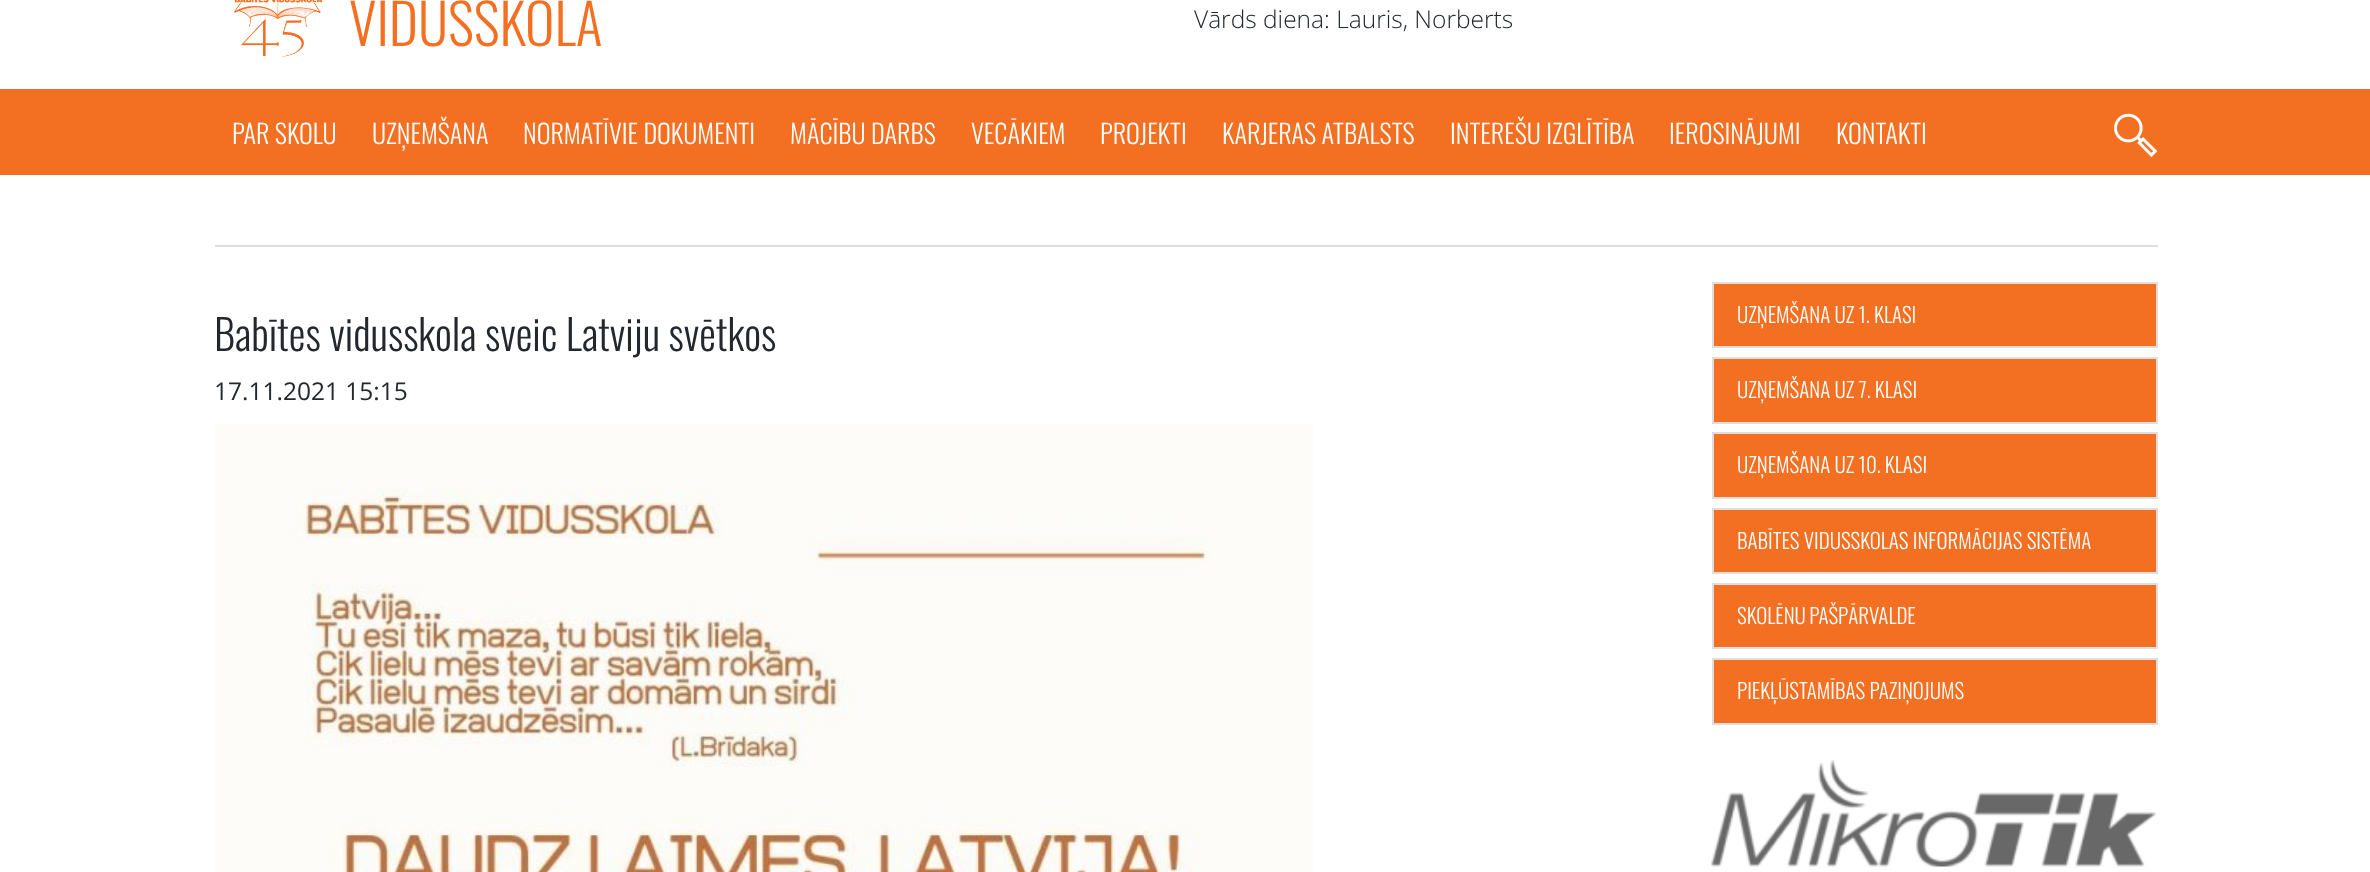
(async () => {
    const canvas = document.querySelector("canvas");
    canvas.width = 2370;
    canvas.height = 872;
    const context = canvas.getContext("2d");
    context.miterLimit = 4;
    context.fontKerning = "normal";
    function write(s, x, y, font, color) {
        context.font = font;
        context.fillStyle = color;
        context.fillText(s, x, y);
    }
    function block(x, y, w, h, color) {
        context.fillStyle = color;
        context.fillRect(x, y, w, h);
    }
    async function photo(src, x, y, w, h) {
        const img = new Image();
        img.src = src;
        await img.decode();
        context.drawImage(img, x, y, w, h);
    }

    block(0, 0, 2370, 872, "rgb(255, 255, 255)");
    await photo("media/1.png", 234, 0, 89, 57);
    write("VIDUSSKOLA", 349, 46, "300 56px Oswald", "rgb(243, 111, 33)");
    write("Vārds diena: Lauris, Norberts", 1194, 28, "300 24.5px Open Sans", "rgb(33, 40, 46)");
    block(0, 89, 2370, 86, "rgb(243, 111, 33)");
    write("PAR SKOLU", 232, 144, "300 26.25px Oswald", "rgb(255, 255, 255)");
    write("UZŅEMŠANA", 372, 144, "300 26.25px Oswald", "rgb(255, 255, 255)");
    write("NORMATĪVIE DOKUMENTI", 523, 144, "300 26.25px Oswald", "rgb(255, 255, 255)");
    write("MĀCĪBU DARBS", 790, 144, "300 26.25px Oswald", "rgb(255, 255, 255)");
    write("VECĀKIEM", 971, 144, "300 26.25px Oswald", "rgb(255, 255, 255)");
    write("PROJEKTI", 1100, 144, "300 26.25px Oswald", "rgb(255, 255, 255)");
    write("KARJERAS ATBALSTS", 1222, 144, "300 26.25px Oswald", "rgb(255, 255, 255)");
    write("INTEREŠU IZGLĪTĪBA", 1450, 144, "300 26.25px Oswald", "rgb(255, 255, 255)");
    write("IEROSINĀJUMI", 1669, 144, "300 26.25px Oswald", "rgb(255, 255, 255)");
    write("KONTAKTI", 1836, 144, "300 26.25px Oswald", "rgb(255, 255, 255)");
    await photo("media/2.png", 2114, 113, 44, 45);
    block(215, 245, 1943, 2, "rgb(222, 222, 222)");
    write("Babītes vidusskola sveic Latviju svētkos", 214, 351, "300 42px Oswald", "rgb(33, 40, 46)");
    write("17.11.2021 15:15", 214, 400, "24.5px Open Sans", "rgb(33, 40, 46)");
    await photo("media/3.png", 215, 424, 1098, 448);
    context.fillStyle = "rgb(243, 111, 33)";
    context.beginPath();
    context.rect(1713, 283, 444, 64);
    context.fill();
    context.strokeStyle = "rgb(222, 222, 222)";
    context.lineWidth = 2;
    context.stroke();
    write("UZŅEMŠANA UZ 1. KLASI", 1737, 323, "300 21px Oswald", "rgb(255, 255, 255)");
    context.fillStyle = "rgb(243, 111, 33)";
    context.beginPath();
    context.rect(1713, 358, 444, 65);
    context.fill();
    context.stroke();
    write("UZŅEMŠANA UZ 7. KLASI", 1737, 398, "300 21px Oswald", "rgb(255, 255, 255)");
    context.fillStyle = "rgb(243, 111, 33)";
    context.beginPath();
    context.rect(1713, 433, 444, 65);
    context.fill();
    context.stroke();
    write("UZŅEMŠANA UZ 10. KLASI", 1737, 473, "300 21px Oswald", "rgb(255, 255, 255)");
    context.fillStyle = "rgb(243, 111, 33)";
    context.beginPath();
    context.rect(1713, 509, 444, 64);
    context.fill();
    context.stroke();
    write("BABĪTES VIDUSSKOLAS INFORMĀCIJAS SISTĒMA", 1737, 549, "300 21px Oswald", "rgb(255, 255, 255)");
    context.fillStyle = "rgb(243, 111, 33)";
    context.beginPath();
    context.rect(1713, 584, 444, 64);
    context.fill();
    context.stroke();
    context.wordSpacing = "-1px";
    write("SKOLĒNU PAŠPĀRVALDE", 1737, 624, "300 21px Oswald", "rgb(255, 255, 255)");
    context.fillStyle = "rgb(243, 111, 33)";
    context.beginPath();
    context.rect(1713, 659, 444, 65);
    context.fill();
    context.stroke();
    context.wordSpacing = "0px";
    write("PIEKĻŪSTAMĪBAS PAZIŅOJUMS", 1737, 699, "300 21px Oswald", "rgb(255, 255, 255)");
    await photo("media/4.png", 1711, 759, 445, 108);
})();
